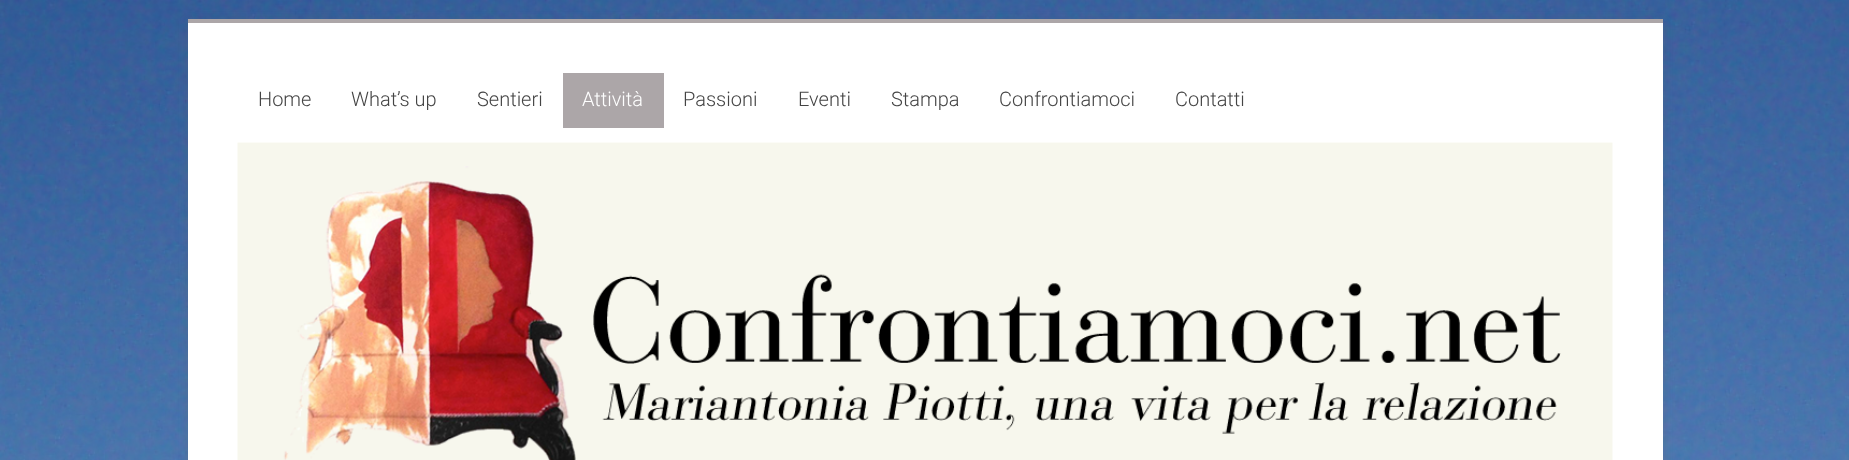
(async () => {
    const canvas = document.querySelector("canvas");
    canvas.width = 1849;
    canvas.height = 460;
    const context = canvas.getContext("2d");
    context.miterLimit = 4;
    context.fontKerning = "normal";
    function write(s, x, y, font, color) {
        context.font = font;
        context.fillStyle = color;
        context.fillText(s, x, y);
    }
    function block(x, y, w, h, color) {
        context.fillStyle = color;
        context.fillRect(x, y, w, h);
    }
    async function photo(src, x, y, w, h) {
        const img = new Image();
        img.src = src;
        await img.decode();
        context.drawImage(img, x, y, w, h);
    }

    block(0, 0, 1849, 460, "rgb(255, 255, 255)");
    await photo("media/1.png", 0, 0, 1849, 460);
    context.fillStyle = "rgba(100, 100, 100, 0.3)";
    context.filter = "blur(4px)";
    context.beginPath();
    context.rect(188, 21, 1475, 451);
    context.fill();
    context.filter = "none";
    block(188, 23, 1475, 437, "rgb(255, 255, 255)");
    block(188, 19, 1475, 4, "rgb(172, 166, 168)");
    write("Home", 258, 106, "300 20px Roboto", "rgb(68, 68, 68)");
    write("What’s up", 351, 106, "300 20px Roboto", "rgb(68, 68, 68)");
    write("Sentieri", 477, 106, "300 20px Roboto", "rgb(68, 68, 68)");
    block(563, 73, 101, 55, "rgb(172, 166, 168)");
    write("Attività", 582, 106, "300 20px Roboto", "rgb(255, 255, 255)");
    write("Passioni", 683, 106, "300 20px Roboto", "rgb(68, 68, 68)");
    write("Eventi", 798, 106, "300 20px Roboto", "rgb(68, 68, 68)");
    write("Stampa", 891, 106, "300 20px Roboto", "rgb(68, 68, 68)");
    write("Confrontiamoci", 999, 106, "300 20px Roboto", "rgb(68, 68, 68)");
    write("Contatti", 1175, 106, "300 20px Roboto", "rgb(68, 68, 68)");
    await photo("media/2.png", 237, 142, 1376, 318);
})();
